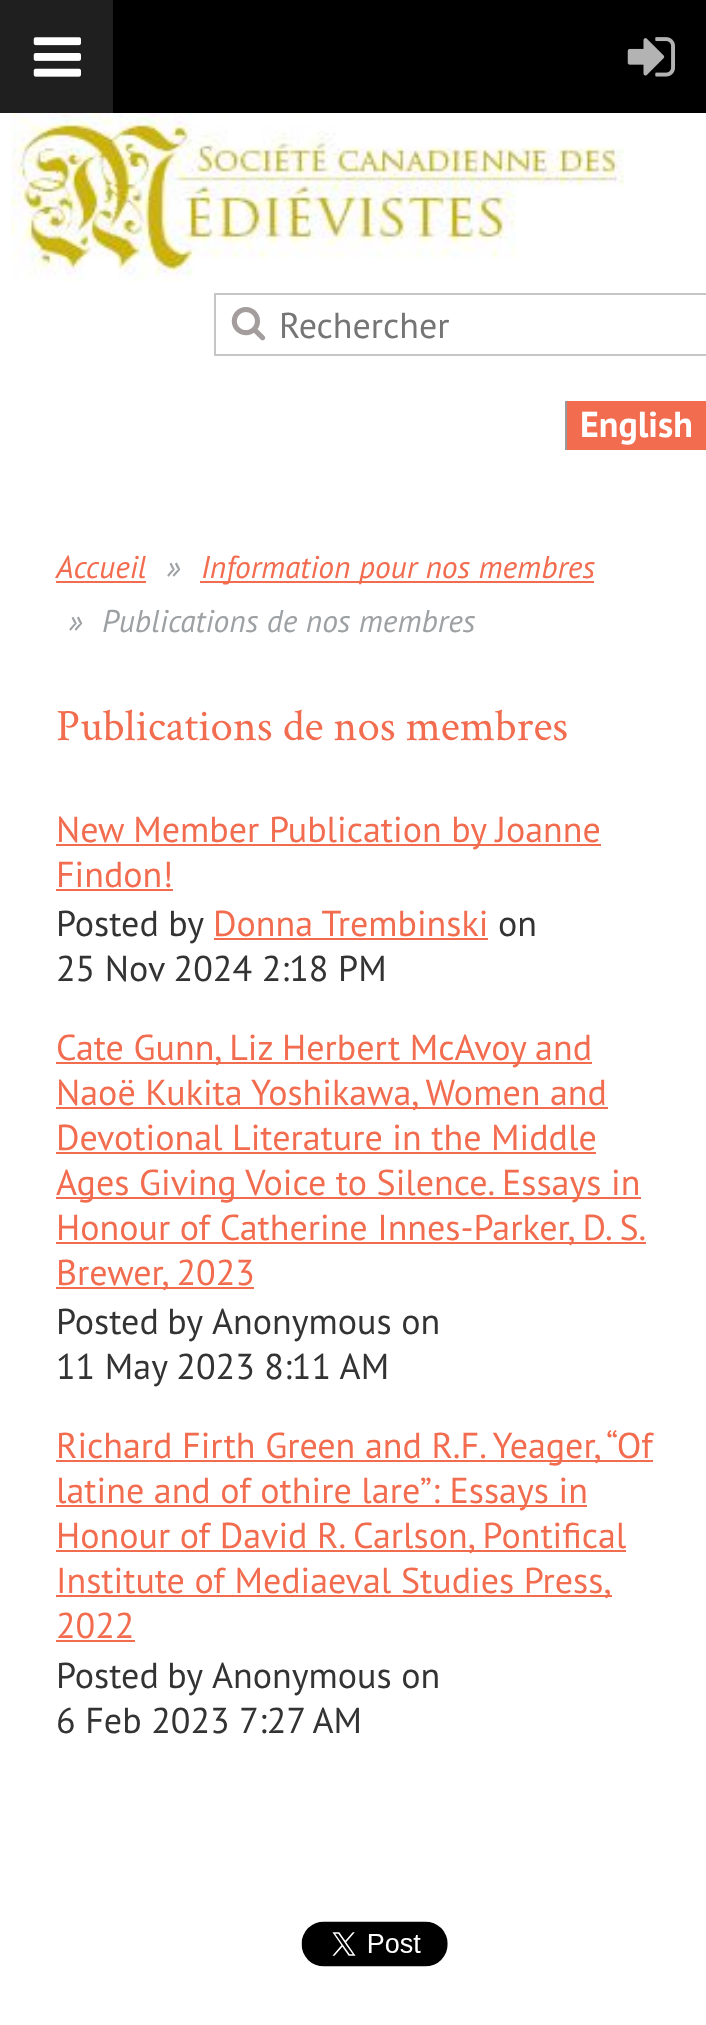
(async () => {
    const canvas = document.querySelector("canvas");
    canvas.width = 706;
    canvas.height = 2025;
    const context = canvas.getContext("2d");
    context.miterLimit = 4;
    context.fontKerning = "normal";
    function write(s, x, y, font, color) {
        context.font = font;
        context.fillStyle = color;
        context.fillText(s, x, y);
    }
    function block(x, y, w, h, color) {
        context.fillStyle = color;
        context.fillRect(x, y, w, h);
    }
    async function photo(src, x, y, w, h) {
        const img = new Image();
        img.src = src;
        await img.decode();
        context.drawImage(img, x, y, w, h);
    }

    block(0, 0, 706, 2025, "rgb(255, 255, 255)");
    block(113, 0, 593, 113, "rgb(0, 0, 0)");
    block(0, 0, 113, 113, "rgb(31, 31, 31)");
    await photo("media/1.png", 33, 37, 48, 40);
    await photo("media/2.png", 627, 37, 48, 40);
    await photo("media/3.png", 11, 113, 614, 168);
    context.strokeStyle = "rgb(198, 198, 198)";
    context.lineWidth = 2;
    context.strokeRect(215, 294, 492, 61);
    await photo("media/4.png", 231, 307, 35, 34);
    write("Rechercher", 279, 338, "36px PT Sans", "rgb(117, 117, 117)");
    block(567, 401, 139, 49, "rgb(242, 108, 79)");
    context.save();
    context.beginPath();
    context.rect(11, 401, 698, 49);
    context.clip();
    context.strokeStyle = "rgb(153, 153, 153)";
    context.strokeRect(566, 395, 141, 59);
    context.restore();
    write("English", 580, 437, "bold 36px PT Sans", "rgb(255, 255, 255)");
    write("Accueil", 56, 578, "italic 31.5px PT Sans", "rgb(242, 108, 79)");
    block(56, 581, 90, 2, "rgb(242, 108, 79)");
    write("»", 166, 578, "italic 31.5px PT Sans", "rgb(157, 161, 163)");
    block(200, 581, 394, 2, "rgb(242, 108, 79)");
    write("Information pour nos membres", 201, 578, "italic 31.5px PT Sans", "rgb(242, 108, 79)");
    write("»", 68, 632, "italic 31.5px PT Sans", "rgb(157, 161, 163)");
    write("Publications de nos membres", 102, 632, "italic 31.5px PT Sans", "rgb(157, 161, 163)");
    write("Publications de nos membres", 56, 740, "45px Crimson Text", "rgb(242, 108, 79)");
    block(56, 844, 545, 2, "rgb(242, 108, 79)");
    write("New Member Publication by Joanne", 56, 842, "36px PT Sans", "rgb(242, 108, 79)");
    write("Findon!", 56, 887, "36px PT Sans", "rgb(242, 108, 79)");
    block(56, 889, 117, 2, "rgb(242, 108, 79)");
    write("Posted by", 56, 936, "36px PT Sans", "rgb(51, 51, 51)");
    write("Donna Trembinski", 213, 936, "36px PT Sans", "rgb(242, 108, 79)");
    block(214, 938, 274, 2, "rgb(242, 108, 79)");
    write("on", 498, 936, "36px PT Sans", "rgb(51, 51, 51)");
    write("25 Nov 2024 2:18 PM", 56, 981, "36px PT Sans", "rgb(51, 51, 51)");
    block(56, 1062, 536, 2, "rgb(242, 108, 79)");
    write("Cate Gunn, Liz Herbert McAvoy and", 56, 1060, "36px PT Sans", "rgb(242, 108, 79)");
    block(56, 1107, 552, 2, "rgb(242, 108, 79)");
    write("Naoë Kukita Yoshikawa, Women and", 56, 1105, "36px PT Sans", "rgb(242, 108, 79)");
    write("Devotional Literature in the Middle", 56, 1150, "36px PT Sans", "rgb(242, 108, 79)");
    block(56, 1152, 540, 2, "rgb(242, 108, 79)");
    block(56, 1197, 585, 2, "rgb(242, 108, 79)");
    write("Ages Giving Voice to Silence. Essays in", 56, 1195, "36px PT Sans", "rgb(242, 108, 79)");
    block(56, 1242, 590, 2, "rgb(242, 108, 79)");
    write("Honour of Catherine Innes-Parker, D. S.", 56, 1240, "36px PT Sans", "rgb(242, 108, 79)");
    block(56, 1287, 198, 2, "rgb(242, 108, 79)");
    write("Brewer, 2023", 56, 1285, "36px PT Sans", "rgb(242, 108, 79)");
    context.wordSpacing = "-1px";
    write("Posted by", 56, 1334, "36px PT Sans", "rgb(51, 51, 51)");
    context.wordSpacing = "0px";
    write("Anonymous on", 212, 1334, "36px PT Sans", "rgb(51, 51, 51)");
    write("11 May 2023 8:11 AM", 56, 1379, "36px PT Sans", "rgb(51, 51, 51)");
    block(56, 1460, 597, 2, "rgb(242, 108, 79)");
    write("Richard Firth Green and R.F. Yeager, “Of", 56, 1458, "36px PT Sans", "rgb(242, 108, 79)");
    block(56, 1505, 531, 2, "rgb(242, 108, 79)");
    write("latine and of othire lare”: Essays in", 56, 1503, "36px PT Sans", "rgb(242, 108, 79)");
    block(56, 1550, 570, 2, "rgb(242, 108, 79)");
    write("Honour of David R. Carlson, Pontifical", 56, 1548, "36px PT Sans", "rgb(242, 108, 79)");
    block(56, 1595, 556, 2, "rgb(242, 108, 79)");
    write("Institute of Mediaeval Studies Press,", 56, 1593, "36px PT Sans", "rgb(242, 108, 79)");
    write("2022", 56, 1638, "36px PT Sans", "rgb(242, 108, 79)");
    block(56, 1640, 79, 2, "rgb(242, 108, 79)");
    context.wordSpacing = "-1px";
    write("Posted by", 56, 1688, "36px PT Sans", "rgb(51, 51, 51)");
    context.wordSpacing = "0px";
    write("Anonymous on", 212, 1688, "36px PT Sans", "rgb(51, 51, 51)");
    write("6 Feb 2023 7:27 AM", 56, 1733, "36px PT Sans", "rgb(51, 51, 51)");
    await photo("media/5.png", 301, 1921, 147, 46);
})();
